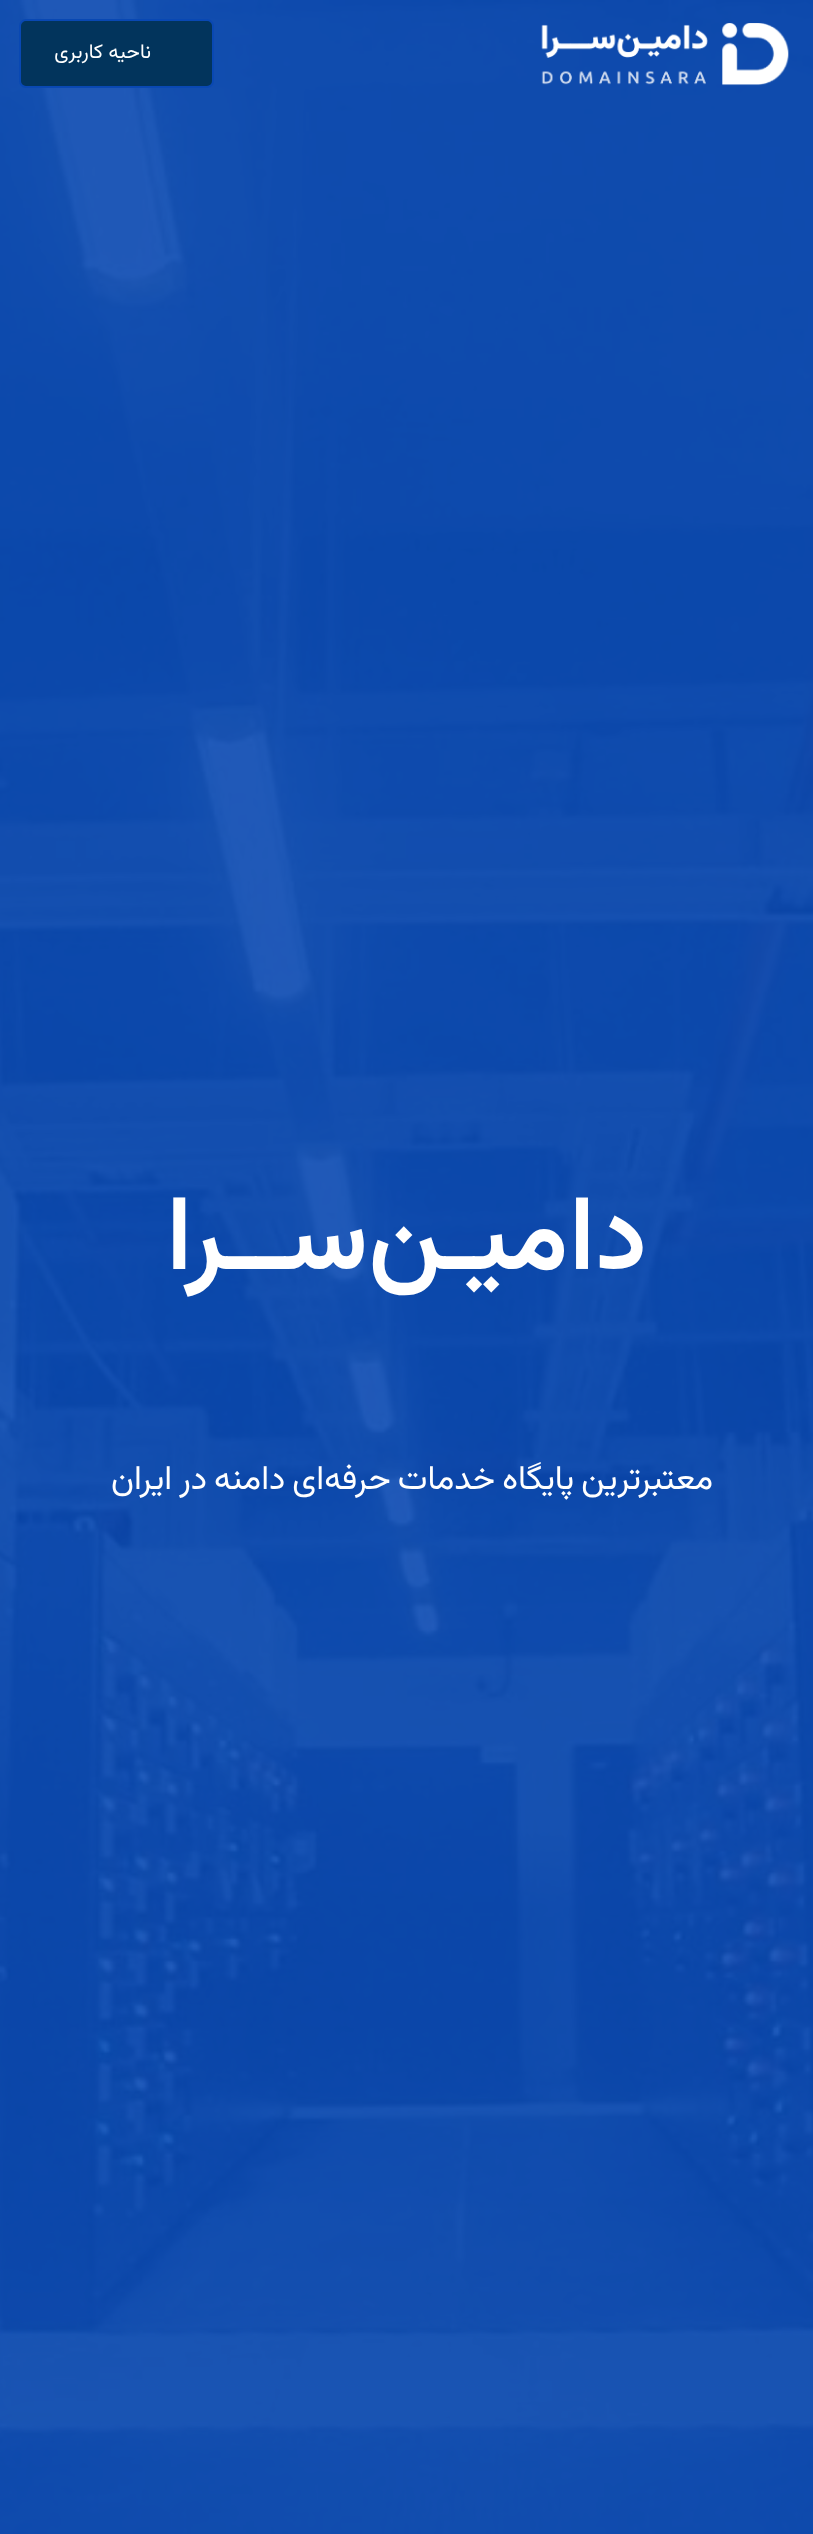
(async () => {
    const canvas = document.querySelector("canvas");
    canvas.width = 813;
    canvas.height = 2534;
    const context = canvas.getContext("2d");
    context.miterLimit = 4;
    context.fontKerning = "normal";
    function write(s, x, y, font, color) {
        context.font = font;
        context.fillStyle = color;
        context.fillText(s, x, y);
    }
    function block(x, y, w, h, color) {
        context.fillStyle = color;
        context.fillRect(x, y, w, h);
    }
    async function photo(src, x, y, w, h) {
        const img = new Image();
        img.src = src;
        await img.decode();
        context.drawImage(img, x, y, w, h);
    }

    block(0, 0, 813, 2534, "rgb(255, 255, 255)");
    await photo("media/2.png", 0, 0, 813, 2534);
    await photo("media/1.png", 541, 23, 248, 63);
    context.fillStyle = "rgb(2, 52, 92)";
    context.beginPath();
    context.roundRect(20, 20, 193, 67, 6);
    context.fill();
    context.strokeStyle = "rgb(9, 72, 179)";
    context.lineWidth = 2;
    context.stroke();
    context.direction = "rtl";
    write("ناحیه کاربری", 151, 58, "20.25px Vazirmatn", "rgb(255, 255, 255)");
    write("دامیـن‌ســرا", 647, 1269, "600 105px Vazirmatn", "rgb(255, 255, 255)");
    context.wordSpacing = "-2px";
    write("معتبرترین پایگاه خدمات حرفه‌ای دامنه در ایران", 713, 1489, "33.9px Vazirmatn", "rgb(255, 255, 255)");
})();
